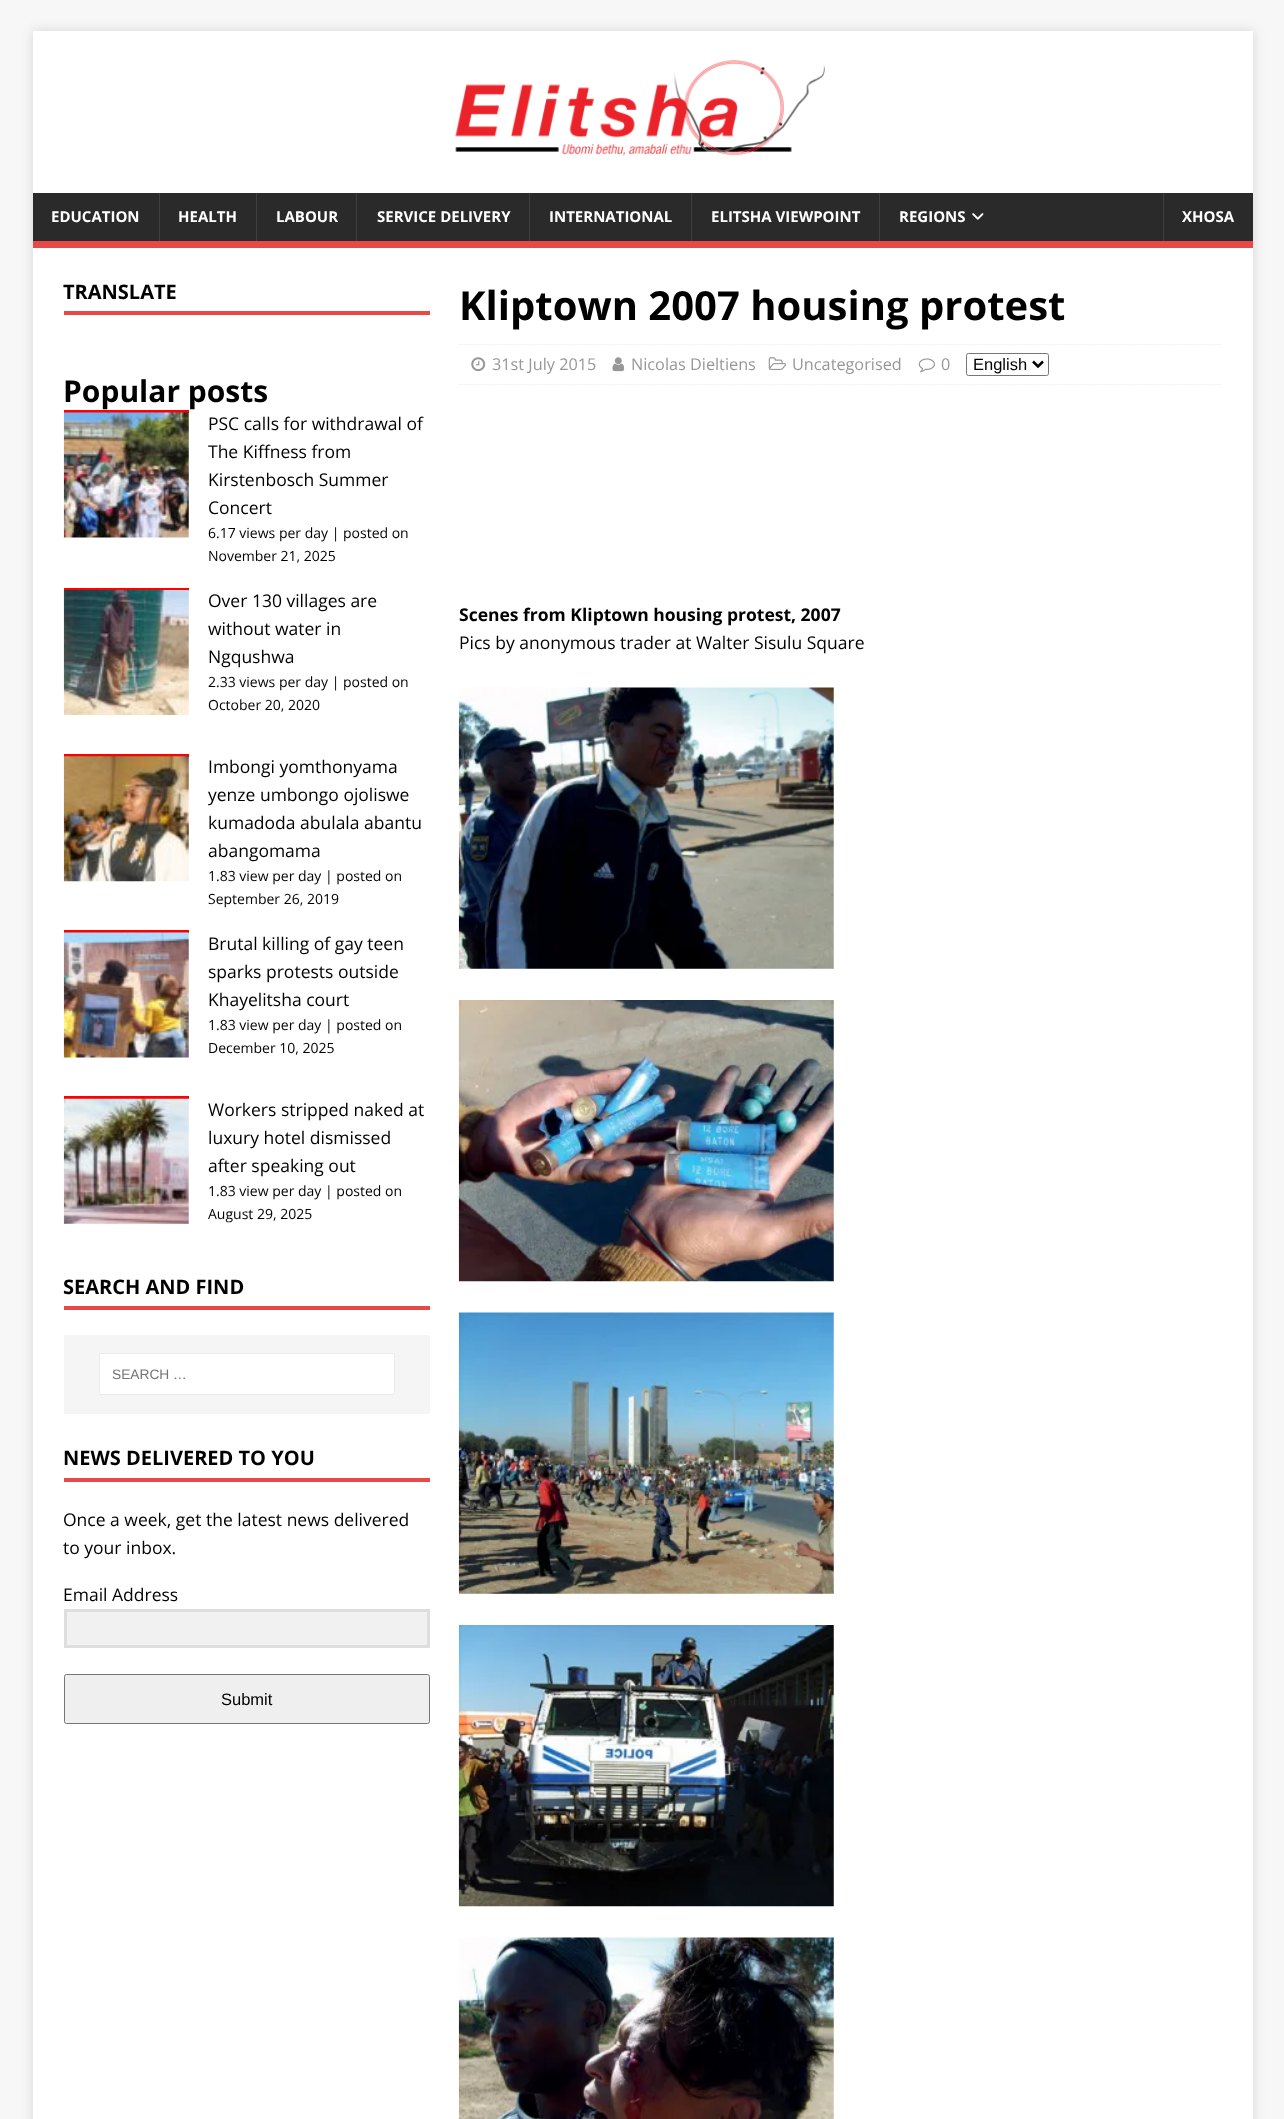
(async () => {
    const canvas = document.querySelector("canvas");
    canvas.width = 1284;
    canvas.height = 2119;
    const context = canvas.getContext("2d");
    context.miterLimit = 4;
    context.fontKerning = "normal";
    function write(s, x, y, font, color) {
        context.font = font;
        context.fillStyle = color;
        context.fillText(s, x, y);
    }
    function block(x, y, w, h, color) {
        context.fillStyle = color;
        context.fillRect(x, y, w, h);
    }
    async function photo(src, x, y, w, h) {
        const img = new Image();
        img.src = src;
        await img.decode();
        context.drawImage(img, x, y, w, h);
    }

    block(0, 0, 1284, 2119, "rgb(247, 247, 247)");
    context.fillStyle = "rgba(50, 50, 50, 0.17)";
    context.filter = "blur(6px)";
    context.beginPath();
    context.rect(33, 31, 1220, 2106);
    context.fill();
    context.filter = "none";
    block(33, 31, 1220, 162, "rgb(255, 255, 255)");
    await photo("media/1.png", 455, 60, 370, 96);
    block(33, 193, 1220, 48, "rgb(42, 42, 42)");
    block(33, 241, 1220, 7, "rgb(230, 73, 70)");
    write("EDUCATION", 51, 222, "bold 15px Open Sans", "rgb(255, 255, 255)");
    block(159, 193, 1, 48, "rgb(63, 63, 63)");
    write("HEALTH", 178, 222, "bold 15px Open Sans", "rgb(255, 255, 255)");
    block(256, 193, 1, 48, "rgb(63, 63, 63)");
    write("LABOUR", 276, 222, "bold 15px Open Sans", "rgb(255, 255, 255)");
    block(356, 193, 1, 48, "rgb(63, 63, 63)");
    write("SERVICE DELIVERY", 377, 222, "bold 15px Open Sans", "rgb(255, 255, 255)");
    block(529, 193, 1, 48, "rgb(63, 63, 63)");
    write("INTERNATIONAL", 549, 222, "bold 15px Open Sans", "rgb(255, 255, 255)");
    block(691, 193, 1, 48, "rgb(63, 63, 63)");
    write("ELITSHA VIEWPOINT", 711, 222, "bold 15px Open Sans", "rgb(255, 255, 255)");
    block(879, 193, 1, 48, "rgb(63, 63, 63)");
    write("REGIONS", 899, 222, "bold 15px Open Sans", "rgb(255, 255, 255)");
    await photo("media/2.png", 972, 213, 12, 7);
    block(1163, 193, 1, 48, "rgb(63, 63, 63)");
    write("XHOSA", 1182, 222, "bold 15px Open Sans", "rgb(255, 255, 255)");
    block(33, 248, 1220, 1871, "rgb(255, 255, 255)");
    block(64, 311, 366, 4, "rgb(230, 73, 70)");
    write("TRANSLATE", 63, 299, "bold 20px Open Sans", "rgb(0, 0, 0)");
    write("Popular posts", 63, 402, "bold 30px Open Sans", "rgb(0, 0, 0)");
    block(64, 410, 125, 3, "rgb(255, 0, 0)");
    await photo("media/3.png", 63, 412, 126, 126);
    write("PSC calls for withdrawal of", 208, 430, "17.5px Open Sans", "rgb(0, 0, 0)");
    write("The Kiffness from", 208, 458, "17.5px Open Sans", "rgb(0, 0, 0)");
    write("Kirstenbosch Summer", 208, 486, "17.5px Open Sans", "rgb(0, 0, 0)");
    write("Concert", 208, 514, "17.5px Open Sans", "rgb(0, 0, 0)");
    write("6.17 views per day | posted on", 208, 538, "14px Open Sans", "rgb(0, 0, 0)");
    write("November 21, 2025", 208, 561, "14px Open Sans", "rgb(0, 0, 0)");
    block(64, 588, 125, 3, "rgb(255, 0, 0)");
    await photo("media/4.png", 63, 590, 126, 125);
    write("Over 130 villages are", 208, 607, "17.5px Open Sans", "rgb(0, 0, 0)");
    write("without water in", 208, 635, "17.5px Open Sans", "rgb(0, 0, 0)");
    write("Ngqushwa", 208, 663, "17.5px Open Sans", "rgb(0, 0, 0)");
    write("2.33 views per day | posted on", 208, 687, "14px Open Sans", "rgb(0, 0, 0)");
    write("October 20, 2020", 208, 710, "14px Open Sans", "rgb(0, 0, 0)");
    block(64, 754, 125, 3, "rgb(255, 0, 0)");
    await photo("media/5.png", 63, 756, 126, 126);
    write("Imbongi yomthonyama", 208, 773, "17.5px Open Sans", "rgb(0, 0, 0)");
    write("yenze umbongo ojoliswe", 208, 801, "17.5px Open Sans", "rgb(0, 0, 0)");
    write("kumadoda abulala abantu", 208, 829, "17.5px Open Sans", "rgb(0, 0, 0)");
    write("abangomama", 208, 857, "17.5px Open Sans", "rgb(0, 0, 0)");
    write("1.83 view per day | posted on", 208, 881, "14px Open Sans", "rgb(0, 0, 0)");
    write("September 26, 2019", 208, 904, "14px Open Sans", "rgb(0, 0, 0)");
    block(64, 930, 125, 3, "rgb(255, 0, 0)");
    await photo("media/6.png", 63, 932, 126, 126);
    write("Brutal killing of gay teen", 208, 950, "17.5px Open Sans", "rgb(0, 0, 0)");
    write("sparks protests outside", 208, 978, "17.5px Open Sans", "rgb(0, 0, 0)");
    write("Khayelitsha court", 208, 1006, "17.5px Open Sans", "rgb(0, 0, 0)");
    write("1.83 view per day | posted on", 208, 1030, "14px Open Sans", "rgb(0, 0, 0)");
    write("December 10, 2025", 208, 1053, "14px Open Sans", "rgb(0, 0, 0)");
    block(64, 1096, 125, 3, "rgb(255, 0, 0)");
    await photo("media/7.png", 63, 1098, 126, 126);
    write("Workers stripped naked at", 208, 1116, "17.5px Open Sans", "rgb(0, 0, 0)");
    write("luxury hotel dismissed", 208, 1144, "17.5px Open Sans", "rgb(0, 0, 0)");
    write("after speaking out", 208, 1172, "17.5px Open Sans", "rgb(0, 0, 0)");
    write("1.83 view per day | posted on", 208, 1196, "14px Open Sans", "rgb(0, 0, 0)");
    write("August 29, 2025", 208, 1219, "14px Open Sans", "rgb(0, 0, 0)");
    block(64, 1306, 366, 4, "rgb(230, 73, 70)");
    write("SEARCH AND FIND", 63, 1294, "bold 20px Open Sans", "rgb(0, 0, 0)");
    block(64, 1335, 366, 79, "rgb(245, 245, 245)");
    context.fillStyle = "rgb(255, 255, 255)";
    context.beginPath();
    context.rect(99.5, 1353.5, 295, 41);
    context.fill();
    context.strokeStyle = "rgb(235, 235, 235)";
    context.stroke();
    write("SEARCH …", 112, 1379, "13.75px Liberation Sans", "rgb(117, 117, 117)");
    block(64, 1478, 366, 4, "rgb(230, 73, 70)");
    write("NEWS DELIVERED TO YOU", 63, 1465, "bold 20px Open Sans", "rgb(0, 0, 0)");
    write("Once a week, get the latest news delivered", 63, 1526, "17.5px Open Sans", "rgb(0, 0, 0)");
    write("to your inbox.", 63, 1554, "17.5px Open Sans", "rgb(0, 0, 0)");
    write("Email Address", 63, 1601, "17.5px Open Sans", "rgb(0, 0, 0)");
    context.fillStyle = "rgb(241, 241, 241)";
    context.beginPath();
    context.rect(65.5, 1610.5, 363, 36);
    context.fill();
    context.strokeStyle = "rgb(222, 222, 222)";
    context.lineWidth = 3;
    context.stroke();
    context.fillStyle = "rgb(239, 239, 239)";
    context.beginPath();
    context.roundRect(64.5, 1674.5, 365, 49, 2);
    context.fill();
    context.strokeStyle = "rgb(118, 118, 118)";
    context.lineWidth = 1;
    context.stroke();
    write("Submit", 221, 1705, "16.5px Liberation Sans", "rgb(0, 0, 0)");
    write("Kliptown 2007 housing protest", 459, 320, "bold 40px Open Sans", "rgb(0, 0, 0)");
    context.beginPath();
    context.moveTo(459, 344.5);
    context.lineTo(1221, 344.5);
    context.strokeStyle = "rgb(235, 235, 235)";
    context.lineWidth = 1.2;
    context.setLineDash([1.25, 1.25]);
    context.stroke();
    context.beginPath();
    context.moveTo(459, 384.5);
    context.lineTo(1221, 384.5);
    context.stroke();
    await photo("media/8.png", 471, 357, 15, 15);
    write("31st July 2015", 492, 370, "16.25px Open Sans", "rgb(151, 151, 151)");
    await photo("media/9.png", 612, 357, 13, 15);
    write("Nicolas Dieltiens", 631, 370, "16.25px Open Sans", "rgb(151, 151, 151)");
    await photo("media/10.png", 768, 357, 18, 13);
    write("Uncategorised", 792, 370, "16.25px Open Sans", "rgb(151, 151, 151)");
    await photo("media/11.png", 918, 358, 17, 15);
    write("0", 941, 370, "16.25px Open Sans", "rgb(151, 151, 151)");
    context.beginPath();
    context.roundRect(966.5, 353.5, 82, 22, 2);
    context.strokeStyle = "rgb(118, 118, 118)";
    context.lineWidth = 1;
    context.setLineDash([]);
    context.stroke();
    context.beginPath();
    context.moveTo(1033, 361.5);
    context.lineTo(1038, 366.5);
    context.lineTo(1043, 361.5);
    context.strokeStyle = "rgb(0, 0, 0)";
    context.lineWidth = 2.5;
    context.stroke();
    write("English", 973, 370, "16.5px Liberation Sans", "rgb(0, 0, 0)");
    write("Scenes from Kliptown housing protest, 2007", 459, 621, "bold 17.5px Open Sans", "rgb(0, 0, 0)");
    write("Pics by anonymous trader at Walter Sisulu Square", 459, 649, "17.5px Open Sans", "rgb(0, 0, 0)");
    await photo("media/12.png", 458, 687, 376, 282);
    await photo("media/13.png", 458, 1000, 376, 282);
    await photo("media/14.png", 458, 1312, 376, 282);
    await photo("media/15.png", 458, 1625, 376, 282);
    await photo("media/16.png", 458, 1937, 376, 182);
})();
